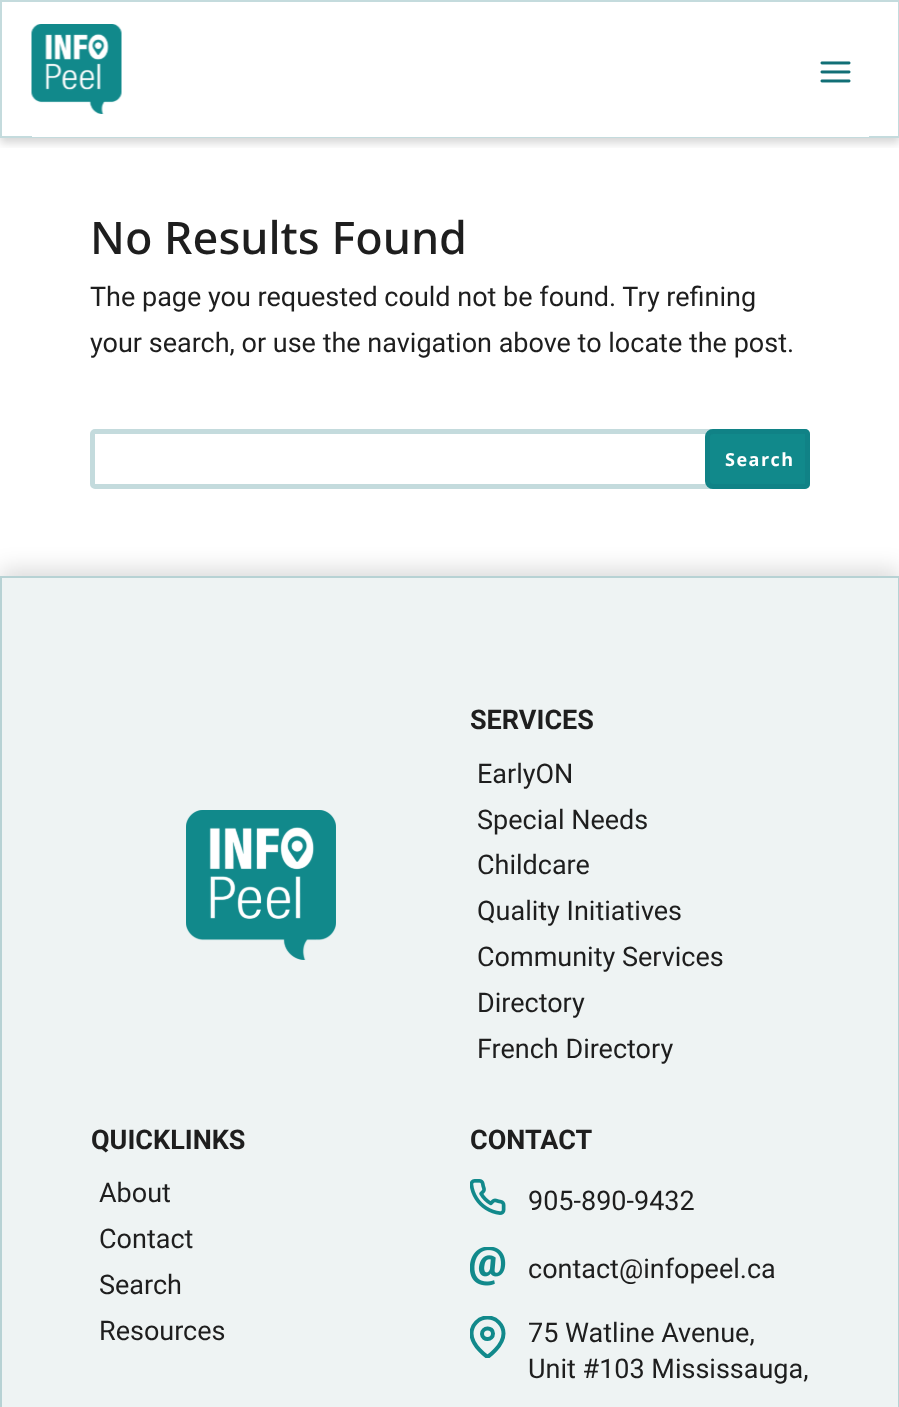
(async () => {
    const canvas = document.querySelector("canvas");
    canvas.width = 899;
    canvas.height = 1407;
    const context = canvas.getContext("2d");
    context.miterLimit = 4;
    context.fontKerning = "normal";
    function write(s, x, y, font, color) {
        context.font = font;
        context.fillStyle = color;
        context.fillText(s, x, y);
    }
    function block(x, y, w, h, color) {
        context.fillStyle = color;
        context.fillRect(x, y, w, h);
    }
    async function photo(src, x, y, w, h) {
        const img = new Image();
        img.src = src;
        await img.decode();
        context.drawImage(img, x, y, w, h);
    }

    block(0, 0, 899, 1407, "rgb(255, 255, 255)");
    context.save();
    context.beginPath();
    context.rect(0, 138, 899, 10);
    context.clip();
    context.fillStyle = "rgba(0, 0, 0, 0.16)";
    context.filter = "blur(4.5px)";
    context.beginPath();
    context.rect(0, 5, 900, 138);
    context.fill();
    context.filter = "none";
    context.restore();
    context.strokeStyle = "rgb(196, 219, 221)";
    context.lineWidth = 2;
    context.strokeRect(1, 1, 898, 136);
    block(32, 136, 837, 1, "rgb(255, 255, 255)");
    await photo("media/1.png", 31, 24, 91, 90);
    await photo("media/2.png", 820, 61, 31, 22);
    write("No Results Found", 90, 254, "500 45px Noto Sans", "rgb(30, 30, 30)");
    write("The page you requested could not be found. Try refining", 90, 306, "27px Roboto", "rgb(30, 30, 30)");
    write("your search, or use the navigation above to locate the post.", 90, 352, "27px Roboto", "rgb(30, 30, 30)");
    context.beginPath();
    context.roundRect(92.5, 431.5, 715, 55, 2.5);
    context.lineWidth = 5;
    context.stroke();
    context.fillStyle = "rgb(17, 137, 139)";
    context.beginPath();
    context.roundRect(705, 429, 105, 60, [8, 5, 5, 8]);
    context.fill();
    context.beginPath();
    context.roundRect(707.5, 431.5, 100, 55, [5.5, 2.5, 2.5, 5.5]);
    context.strokeStyle = "rgba(17, 111, 118, 0.25)";
    context.stroke();
    context.letterSpacing = "1.5px";
    write("Search", 725, 466, "bold 18px Open Sans", "rgb(255, 255, 255)");
    context.fillStyle = "rgba(0, 0, 0, 0.14)";
    context.filter = "blur(11px)";
    context.beginPath();
    context.rect(0, 569, 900, 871);
    context.fill();
    context.filter = "none";
    context.fillStyle = "rgb(238, 243, 243)";
    context.beginPath();
    context.rect(1, 577, 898, 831);
    context.fill();
    context.strokeStyle = "rgb(183, 210, 212)";
    context.lineWidth = 2;
    context.stroke();
    await photo("media/3.png", 186, 810, 150, 150);
    context.letterSpacing = "0px";
    write("SERVICES", 470, 729, "bold 27px Roboto", "rgb(30, 30, 30)");
    write("EarlyON", 477, 783, "27px Roboto", "rgb(30, 30, 30)");
    write("Special Needs", 477, 829, "27px Roboto", "rgb(30, 30, 30)");
    write("Childcare", 477, 874, "27px Roboto", "rgb(30, 30, 30)");
    write("Quality Initiatives", 477, 920, "27px Roboto", "rgb(30, 30, 30)");
    write("Community Services", 477, 966, "27px Roboto", "rgb(30, 30, 30)");
    write("Directory", 477, 1012, "27px Roboto", "rgb(30, 30, 30)");
    write("French Directory", 477, 1058, "27px Roboto", "rgb(30, 30, 30)");
    write("QUICKLINKS", 91, 1149, "bold 27px Roboto", "rgb(30, 30, 30)");
    write("About", 99, 1202, "27px Roboto", "rgb(30, 30, 30)");
    write("Contact", 99, 1248, "27px Roboto", "rgb(30, 30, 30)");
    write("Search", 99, 1294, "27px Roboto", "rgb(30, 30, 30)");
    write("Resources", 99, 1340, "27px Roboto", "rgb(30, 30, 30)");
    write("CONTACT", 470, 1149, "bold 27px Roboto", "rgb(30, 30, 30)");
    await photo("media/4.png", 470, 1179, 36, 36);
    write("905-890-9432", 528, 1210, "27px Roboto", "rgb(30, 30, 30)");
    await photo("media/5.png", 470, 1247, 36, 39);
    write("contact@infopeel.ca", 528, 1278, "27px Roboto", "rgb(30, 30, 30)");
    context.save();
    context.beginPath();
    context.rect(470, 1316, 36, 42);
    context.clip();
    context.beginPath();
    context.moveTo(503.5, 1333.5);
    context.bezierCurveTo(503.5, 1346, 487.5, 1357, 487.5, 1357);
    context.bezierCurveTo(487.5, 1357, 471.5, 1346, 471.5, 1333.5);
    context.bezierCurveTo(471.5, 1325, 478.5, 1317.5, 487.5, 1317.5);
    context.bezierCurveTo(496.5, 1317.5, 503.5, 1325, 503.5, 1333.5);
    context.closePath();
    context.strokeStyle = "rgb(17, 137, 139)";
    context.lineWidth = 4;
    context.lineCap = "round";
    context.lineJoin = "round";
    context.stroke();
    context.restore();
    context.beginPath();
    context.moveTo(493, 1333.5);
    context.bezierCurveTo(493, 1340.5, 482.5, 1341, 482, 1334);
    context.bezierCurveTo(482, 1327, 493, 1326.5, 493, 1333.5);
    context.closePath();
    context.strokeStyle = "rgb(17, 137, 139)";
    context.lineWidth = 4;
    context.lineCap = "round";
    context.lineJoin = "round";
    context.stroke();
    write("75 Watline Avenue,", 528, 1342, "27px Roboto", "rgb(30, 30, 30)");
    write("Unit #103 Mississauga,", 528, 1378, "27px Roboto", "rgb(30, 30, 30)");
})();
